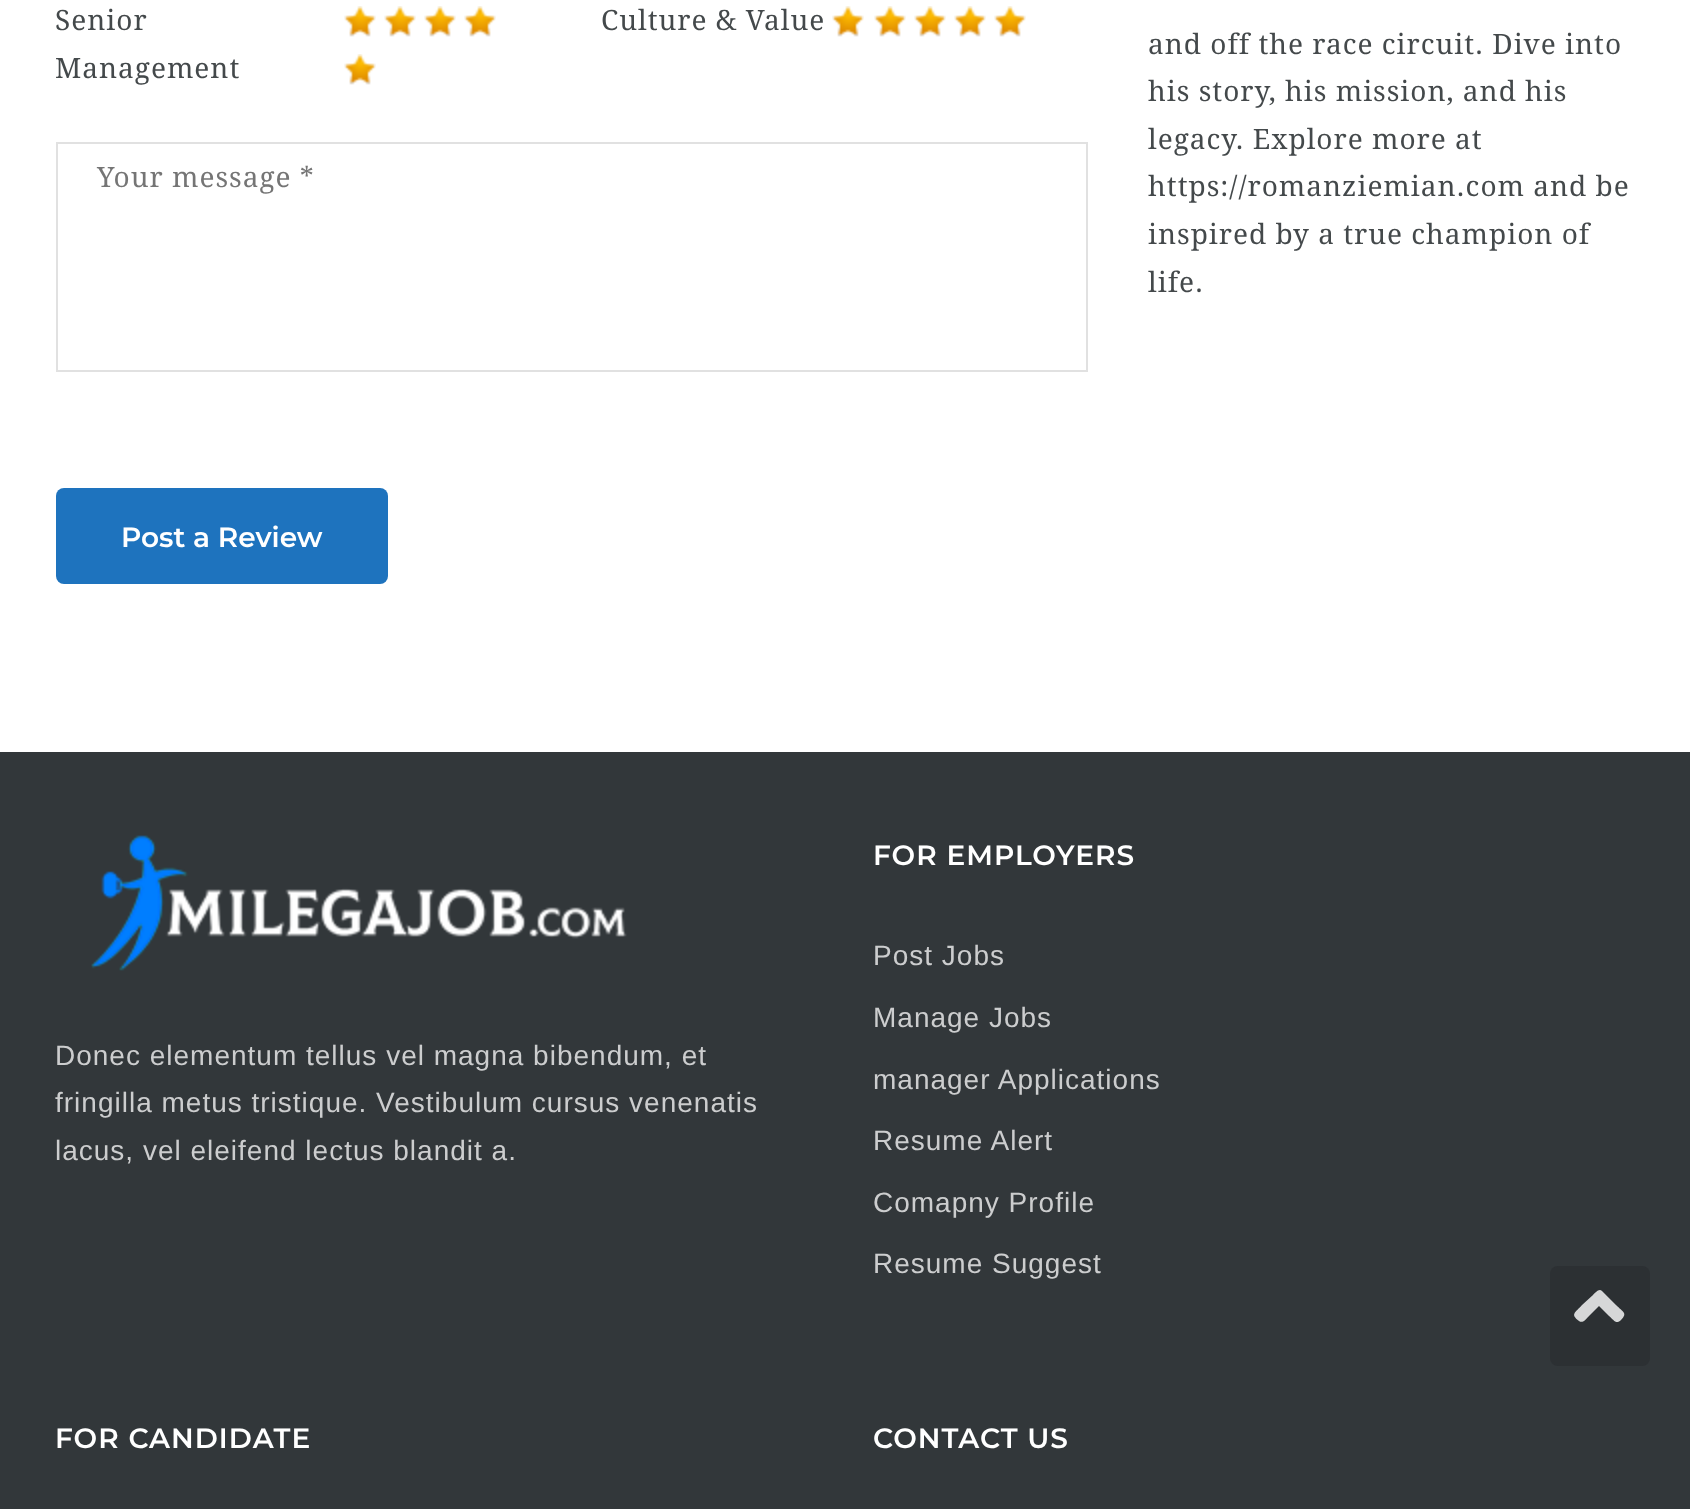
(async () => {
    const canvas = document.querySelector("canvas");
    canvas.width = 1690;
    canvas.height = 1509;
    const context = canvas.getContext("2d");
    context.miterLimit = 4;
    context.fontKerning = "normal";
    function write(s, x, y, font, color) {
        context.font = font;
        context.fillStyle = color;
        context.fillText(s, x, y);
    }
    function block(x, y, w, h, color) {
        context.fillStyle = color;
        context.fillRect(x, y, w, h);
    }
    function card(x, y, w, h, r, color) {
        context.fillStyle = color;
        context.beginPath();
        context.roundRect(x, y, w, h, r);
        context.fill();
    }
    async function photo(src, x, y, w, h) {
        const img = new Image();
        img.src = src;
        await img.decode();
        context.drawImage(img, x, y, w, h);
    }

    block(0, 0, 1690, 1509, "rgb(255, 255, 255)");
    context.letterSpacing = "1px";
    write("Senior", 55, 30, "28px Droid Serif", "rgb(68, 73, 75)");
    write("Management", 55, 78, "28px Droid Serif", "rgb(68, 73, 75)");
    await photo("media/1.png", 344, 6, 32, 31);
    await photo("media/1.png", 384, 6, 32, 31);
    await photo("media/1.png", 424, 6, 32, 31);
    await photo("media/1.png", 464, 6, 32, 31);
    await photo("media/1.png", 344, 54, 32, 31);
    write("Culture & Value", 601, 30, "28px Droid Serif", "rgb(68, 73, 75)");
    await photo("media/1.png", 832, 6, 32, 31);
    await photo("media/1.png", 874, 6, 32, 31);
    await photo("media/1.png", 914, 6, 32, 31);
    await photo("media/1.png", 954, 6, 32, 31);
    await photo("media/1.png", 994, 6, 32, 31);
    context.strokeStyle = "rgb(225, 225, 225)";
    context.lineWidth = 2;
    context.strokeRect(57, 143, 1030, 228);
    write("Your message *", 97, 187, "28px Droid Serif", "rgb(117, 117, 117)");
    card(56, 488, 332, 96, 8, "rgb(30, 115, 190)");
    context.letterSpacing = "0px";
    write("Post a Review", 121, 547, "600 28px Montserrat", "rgb(255, 255, 255)");
    context.letterSpacing = "1px";
    write("and off the race circuit. Dive into", 1148, 54, "28px Droid Serif", "rgb(68, 73, 75)");
    write("his story, his mission, and his", 1148, 101, "28px Droid Serif", "rgb(68, 73, 75)");
    write("legacy. Explore more at", 1148, 149, "28px Droid Serif", "rgb(68, 73, 75)");
    write("https://romanziemian.com and be", 1148, 196, "28px Droid Serif", "rgb(68, 73, 75)");
    write("inspired by a true champion of", 1148, 244, "28px Droid Serif", "rgb(68, 73, 75)");
    write("life.", 1148, 292, "28px Droid Serif", "rgb(68, 73, 75)");
    block(0, 752, 1690, 757, "rgb(50, 55, 58)");
    await photo("media/2.png", 91, 835, 536, 136);
    write("Donec elementum tellus vel magna bibendum, et", 55, 1065, "28px Liberation Sans", "rgb(204, 205, 206)");
    write("fringilla metus tristique. Vestibulum cursus venenatis", 55, 1112, "28px Liberation Sans", "rgb(204, 205, 206)");
    write("lacus, vel eleifend lectus blandit a.", 55, 1160, "28px Liberation Sans", "rgb(204, 205, 206)");
    write("FOR EMPLOYERS", 873, 865, "600 28px Montserrat", "rgb(255, 255, 255)");
    write("Post Jobs", 873, 965, "28px Liberation Sans", "rgb(204, 205, 206)");
    write("Manage Jobs", 873, 1027, "28px Liberation Sans", "rgb(204, 205, 206)");
    write("manager Applications", 873, 1089, "28px Liberation Sans", "rgb(204, 205, 206)");
    write("Resume Alert", 873, 1150, "28px Liberation Sans", "rgb(204, 205, 206)");
    write("Comapny Profile", 873, 1212, "28px Liberation Sans", "rgb(204, 205, 206)");
    write("Resume Suggest", 873, 1273, "28px Liberation Sans", "rgb(204, 205, 206)");
    write("FOR CANDIDATE", 55, 1448, "600 28px Montserrat", "rgb(255, 255, 255)");
    write("CONTACT US", 873, 1448, "600 28px Montserrat", "rgb(255, 255, 255)");
    card(1550, 1266, 100, 100, 8, "rgb(44, 48, 51)");
    context.fillStyle = "rgb(214, 215, 216)";
    context.beginPath();
    context.moveTo(1602, 1291);
    context.lineTo(1616, 1305);
    context.bezierCurveTo(1623, 1312, 1628, 1313, 1621, 1320);
    context.bezierCurveTo(1616, 1325, 1614, 1320, 1609, 1316);
    context.lineTo(1599, 1306);
    context.lineTo(1589, 1316);
    context.bezierCurveTo(1587, 1318, 1583, 1324, 1579, 1321);
    context.bezierCurveTo(1570, 1314, 1575, 1313, 1582, 1305);
    context.lineTo(1593, 1295);
    context.bezierCurveTo(1595, 1293, 1599, 1288, 1602, 1291);
    context.closePath();
    context.fill();
})();
